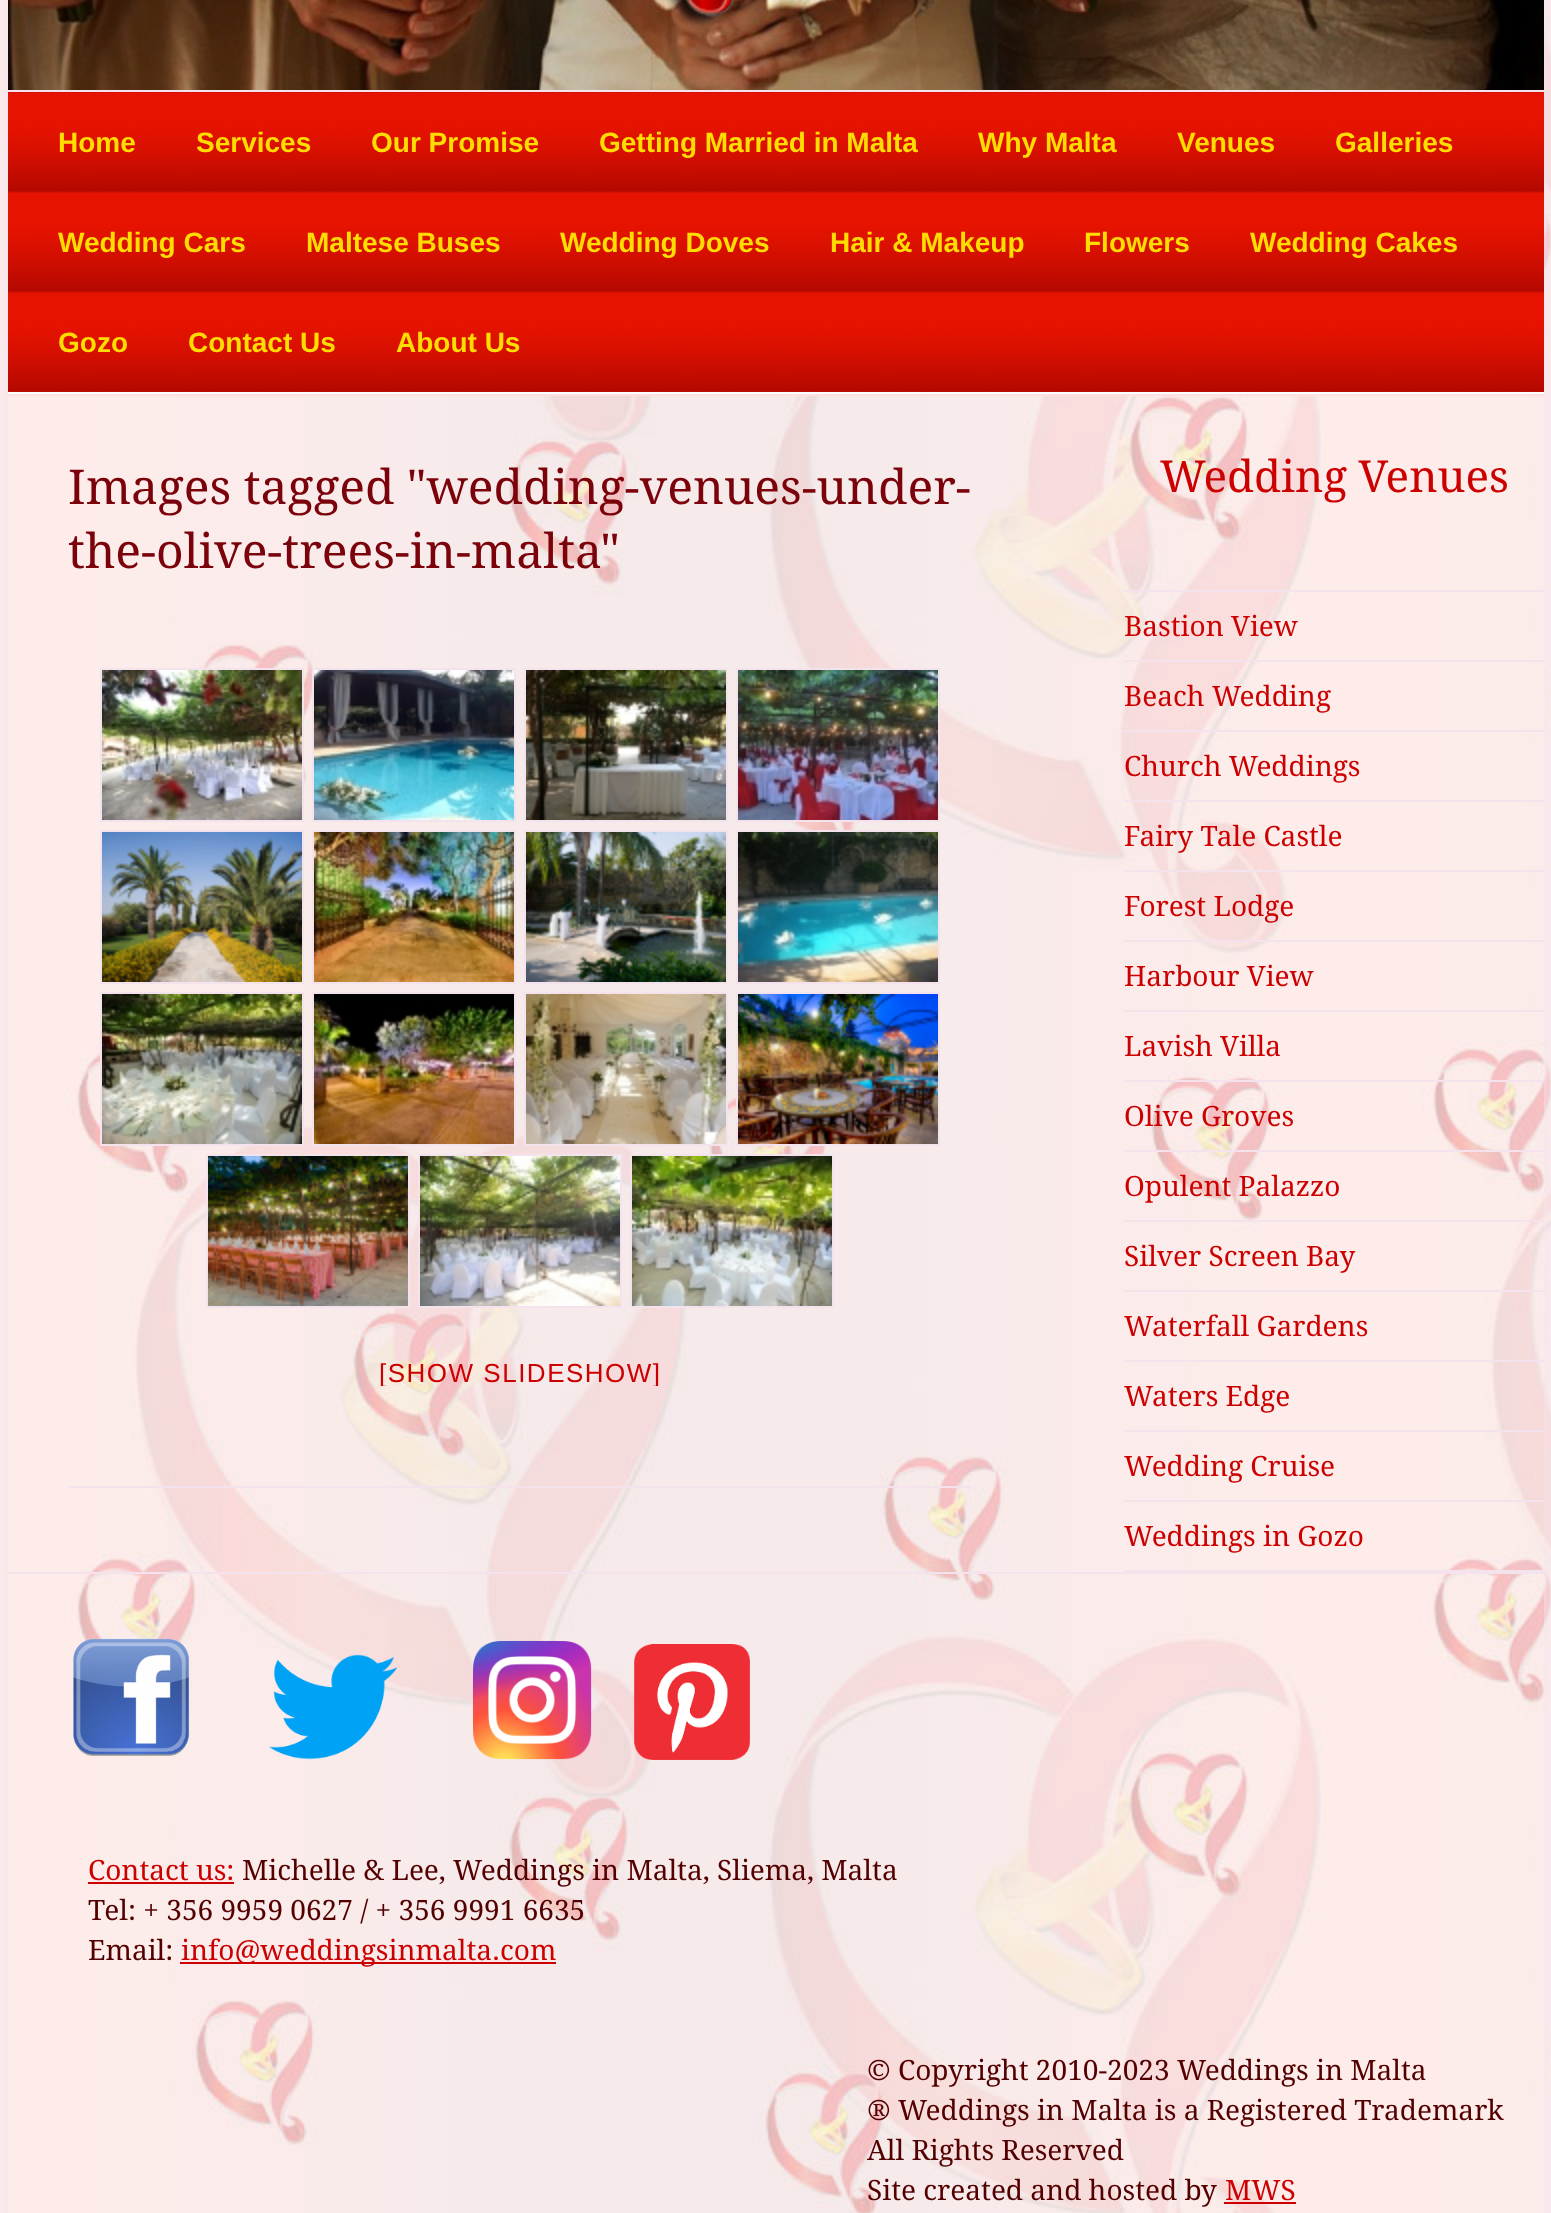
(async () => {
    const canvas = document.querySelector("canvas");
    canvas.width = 1551;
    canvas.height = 2213;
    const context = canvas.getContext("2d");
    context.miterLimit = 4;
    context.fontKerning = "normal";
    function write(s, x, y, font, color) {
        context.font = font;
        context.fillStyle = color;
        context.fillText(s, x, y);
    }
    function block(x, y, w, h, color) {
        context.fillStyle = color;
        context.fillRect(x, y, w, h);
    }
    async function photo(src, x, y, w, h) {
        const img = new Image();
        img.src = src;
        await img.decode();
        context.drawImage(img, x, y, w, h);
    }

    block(0, 0, 1551, 2213, "rgb(255, 255, 255)");
    await photo("media/1.png", 0, 0, 1551, 2213);
    context.save();
    context.beginPath();
    context.moveTo(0, 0);
    context.lineTo(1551, 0);
    context.lineTo(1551, 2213);
    context.lineTo(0, 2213);
    context.closePath();
    context.moveTo(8, -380);
    context.lineTo(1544, -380);
    context.lineTo(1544, 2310);
    context.lineTo(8, 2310);
    context.closePath();
    context.clip("evenodd");
    context.fillStyle = "rgb(244, 227, 236)";
    context.filter = "blur(10px)";
    context.beginPath();
    context.rect(8, -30, 1536, 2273);
    context.fill();
    context.filter = "none";
    context.restore();
    await photo("media/2.png", 8, 0, 1536, 90);
    await photo("media/3.png", 8, 92, 1536, 300);
    block(8, 90, 1536, 2, "rgb(244, 227, 236)");
    block(8, 392, 1536, 2, "rgb(255, 255, 255)");
    write("Home", 58, 152, "bold 28px Liberation Sans", "rgb(255, 221, 0)");
    write("Services", 196, 152, "bold 28px Liberation Sans", "rgb(255, 221, 0)");
    write("Our Promise", 371, 152, "bold 28px Liberation Sans", "rgb(255, 221, 0)");
    write("Getting Married in Malta", 599, 152, "bold 28px Liberation Sans", "rgb(255, 221, 0)");
    write("Why Malta", 978, 152, "bold 28px Liberation Sans", "rgb(255, 221, 0)");
    write("Venues", 1177, 152, "bold 28px Liberation Sans", "rgb(255, 221, 0)");
    write("Galleries", 1335, 152, "bold 28px Liberation Sans", "rgb(255, 221, 0)");
    write("Wedding Cars", 58, 252, "bold 28px Liberation Sans", "rgb(255, 221, 0)");
    write("Maltese Buses", 306, 252, "bold 28px Liberation Sans", "rgb(255, 221, 0)");
    write("Wedding Doves", 560, 252, "bold 28px Liberation Sans", "rgb(255, 221, 0)");
    write("Hair & Makeup", 830, 252, "bold 28px Liberation Sans", "rgb(255, 221, 0)");
    write("Flowers", 1084, 252, "bold 28px Liberation Sans", "rgb(255, 221, 0)");
    write("Wedding Cakes", 1250, 252, "bold 28px Liberation Sans", "rgb(255, 221, 0)");
    write("Gozo", 58, 352, "bold 28px Liberation Sans", "rgb(255, 221, 0)");
    write("Contact Us", 188, 352, "bold 28px Liberation Sans", "rgb(255, 221, 0)");
    write("About Us", 396, 352, "bold 28px Liberation Sans", "rgb(255, 221, 0)");
    block(8, 394, 1536, 2, "rgb(255, 224, 224)");
    block(8, 1572, 1536, 2, "rgb(244, 227, 236)");
    block(68, 1486, 904, 2, "rgb(244, 227, 236)");
    write("Images tagged \"wedding-venues-under-", 68, 504, "48px Droid Serif", "rgb(123, 2, 10)");
    write("the-olive-trees-in-malta\"", 68, 568, "48px Droid Serif", "rgb(123, 2, 10)");
    context.strokeStyle = "rgb(244, 227, 236)";
    context.lineWidth = 2;
    context.strokeRect(101, 669, 202, 152);
    await photo("media/4.png", 102, 670, 200, 150);
    context.strokeRect(313, 669, 202, 152);
    await photo("media/5.png", 314, 670, 200, 150);
    context.strokeRect(525, 669, 202, 152);
    await photo("media/6.png", 526, 670, 200, 150);
    context.strokeRect(737, 669, 202, 152);
    await photo("media/7.png", 738, 670, 200, 150);
    context.strokeRect(101, 831, 202, 152);
    await photo("media/8.png", 102, 832, 200, 150);
    context.strokeRect(313, 831, 202, 152);
    await photo("media/9.png", 314, 832, 200, 150);
    context.strokeRect(525, 831, 202, 152);
    await photo("media/10.png", 526, 832, 200, 150);
    context.strokeRect(737, 831, 202, 152);
    await photo("media/11.png", 738, 832, 200, 150);
    context.strokeRect(101, 993, 202, 152);
    await photo("media/12.png", 102, 994, 200, 150);
    context.strokeRect(313, 993, 202, 152);
    await photo("media/13.png", 314, 994, 200, 150);
    context.strokeRect(525, 993, 202, 152);
    await photo("media/14.png", 526, 994, 200, 150);
    context.strokeRect(737, 993, 202, 152);
    await photo("media/15.png", 738, 994, 200, 150);
    context.strokeRect(207, 1155, 202, 152);
    await photo("media/16.png", 208, 1156, 200, 150);
    context.strokeRect(419, 1155, 202, 152);
    await photo("media/17.png", 420, 1156, 200, 150);
    context.strokeRect(631, 1155, 202, 152);
    await photo("media/18.png", 632, 1156, 200, 150);
    context.save();
    context.beginPath();
    context.rect(68, 664, 904, 722);
    context.clip();
    context.letterSpacing = "1.5px";
    write("[SHOW SLIDESHOW]", 379, 1382, "26px Liberation Sans", "rgb(204, 0, 0)");
    context.restore();
    write("Wedding Venues", 1160, 492, "44px Droid Serif", "rgb(204, 0, 0)");
    block(1124, 590, 420, 2, "rgb(244, 227, 236)");
    block(1124, 660, 420, 2, "rgb(244, 227, 236)");
    write("Bastion View", 1124, 636, "28px Droid Serif", "rgb(204, 0, 0)");
    block(1124, 730, 420, 2, "rgb(244, 227, 236)");
    write("Beach Wedding", 1124, 706, "28px Droid Serif", "rgb(204, 0, 0)");
    block(1124, 800, 420, 2, "rgb(244, 227, 236)");
    write("Church Weddings", 1124, 776, "28px Droid Serif", "rgb(204, 0, 0)");
    block(1124, 870, 420, 2, "rgb(244, 227, 236)");
    write("Fairy Tale Castle", 1124, 846, "28px Droid Serif", "rgb(204, 0, 0)");
    block(1124, 940, 420, 2, "rgb(244, 227, 236)");
    write("Forest Lodge", 1124, 916, "28px Droid Serif", "rgb(204, 0, 0)");
    block(1124, 1010, 420, 2, "rgb(244, 227, 236)");
    write("Harbour View", 1124, 986, "28px Droid Serif", "rgb(204, 0, 0)");
    block(1124, 1080, 420, 2, "rgb(244, 227, 236)");
    write("Lavish Villa", 1124, 1056, "28px Droid Serif", "rgb(204, 0, 0)");
    block(1124, 1150, 420, 2, "rgb(244, 227, 236)");
    write("Olive Groves", 1124, 1126, "28px Droid Serif", "rgb(204, 0, 0)");
    block(1124, 1220, 420, 2, "rgb(244, 227, 236)");
    write("Opulent Palazzo", 1124, 1196, "28px Droid Serif", "rgb(204, 0, 0)");
    block(1124, 1290, 420, 2, "rgb(244, 227, 236)");
    write("Silver Screen Bay", 1124, 1266, "28px Droid Serif", "rgb(204, 0, 0)");
    block(1124, 1360, 420, 2, "rgb(244, 227, 236)");
    write("Waterfall Gardens", 1124, 1336, "28px Droid Serif", "rgb(204, 0, 0)");
    block(1124, 1430, 420, 2, "rgb(244, 227, 236)");
    write("Waters Edge", 1124, 1406, "28px Droid Serif", "rgb(204, 0, 0)");
    block(1124, 1500, 420, 2, "rgb(244, 227, 236)");
    write("Wedding Cruise", 1124, 1476, "28px Droid Serif", "rgb(204, 0, 0)");
    block(1124, 1570, 420, 2, "rgb(244, 227, 236)");
    write("Weddings in Gozo", 1124, 1546, "28px Droid Serif", "rgb(204, 0, 0)");
    await photo("media/19.png", 73, 1638, 117, 118);
    await photo("media/20.png", 269, 1654, 129, 106);
    await photo("media/21.png", 472, 1640, 120, 120);
    await photo("media/22.png", 634, 1644, 116, 116);
    write("Contact us:", 88, 1880, "28px Droid Serif", "rgb(204, 0, 0)");
    block(88, 1882, 146, 2, "rgb(204, 0, 0)");
    write("Michelle & Lee, Weddings in Malta, Sliema, Malta", 242, 1880, "28px Droid Serif", "rgb(85, 0, 0)");
    write("Tel: + 356 9959 0627 / + 356 9991 6635", 88, 1920, "28px Droid Serif", "rgb(85, 0, 0)");
    write("Email:", 88, 1960, "28px Droid Serif", "rgb(85, 0, 0)");
    block(180, 1962, 376, 2, "rgb(204, 0, 0)");
    write("info@weddingsinmalta.com", 181, 1960, "28px Droid Serif", "rgb(204, 0, 0)");
    write("© Copyright 2010-2023 Weddings in Malta", 867, 2080, "28px Droid Serif", "rgb(85, 0, 0)");
    write("® Weddings in Malta is a Registered Trademark", 867, 2120, "28px Droid Serif", "rgb(85, 0, 0)");
    write("All Rights Reserved", 867, 2160, "28px Droid Serif", "rgb(85, 0, 0)");
    write("Site created and hosted by", 867, 2200, "28px Droid Serif", "rgb(85, 0, 0)");
    write("MWS", 1225, 2200, "28px Droid Serif", "rgb(204, 0, 0)");
    block(1224, 2202, 72, 2, "rgb(204, 0, 0)");
})();
